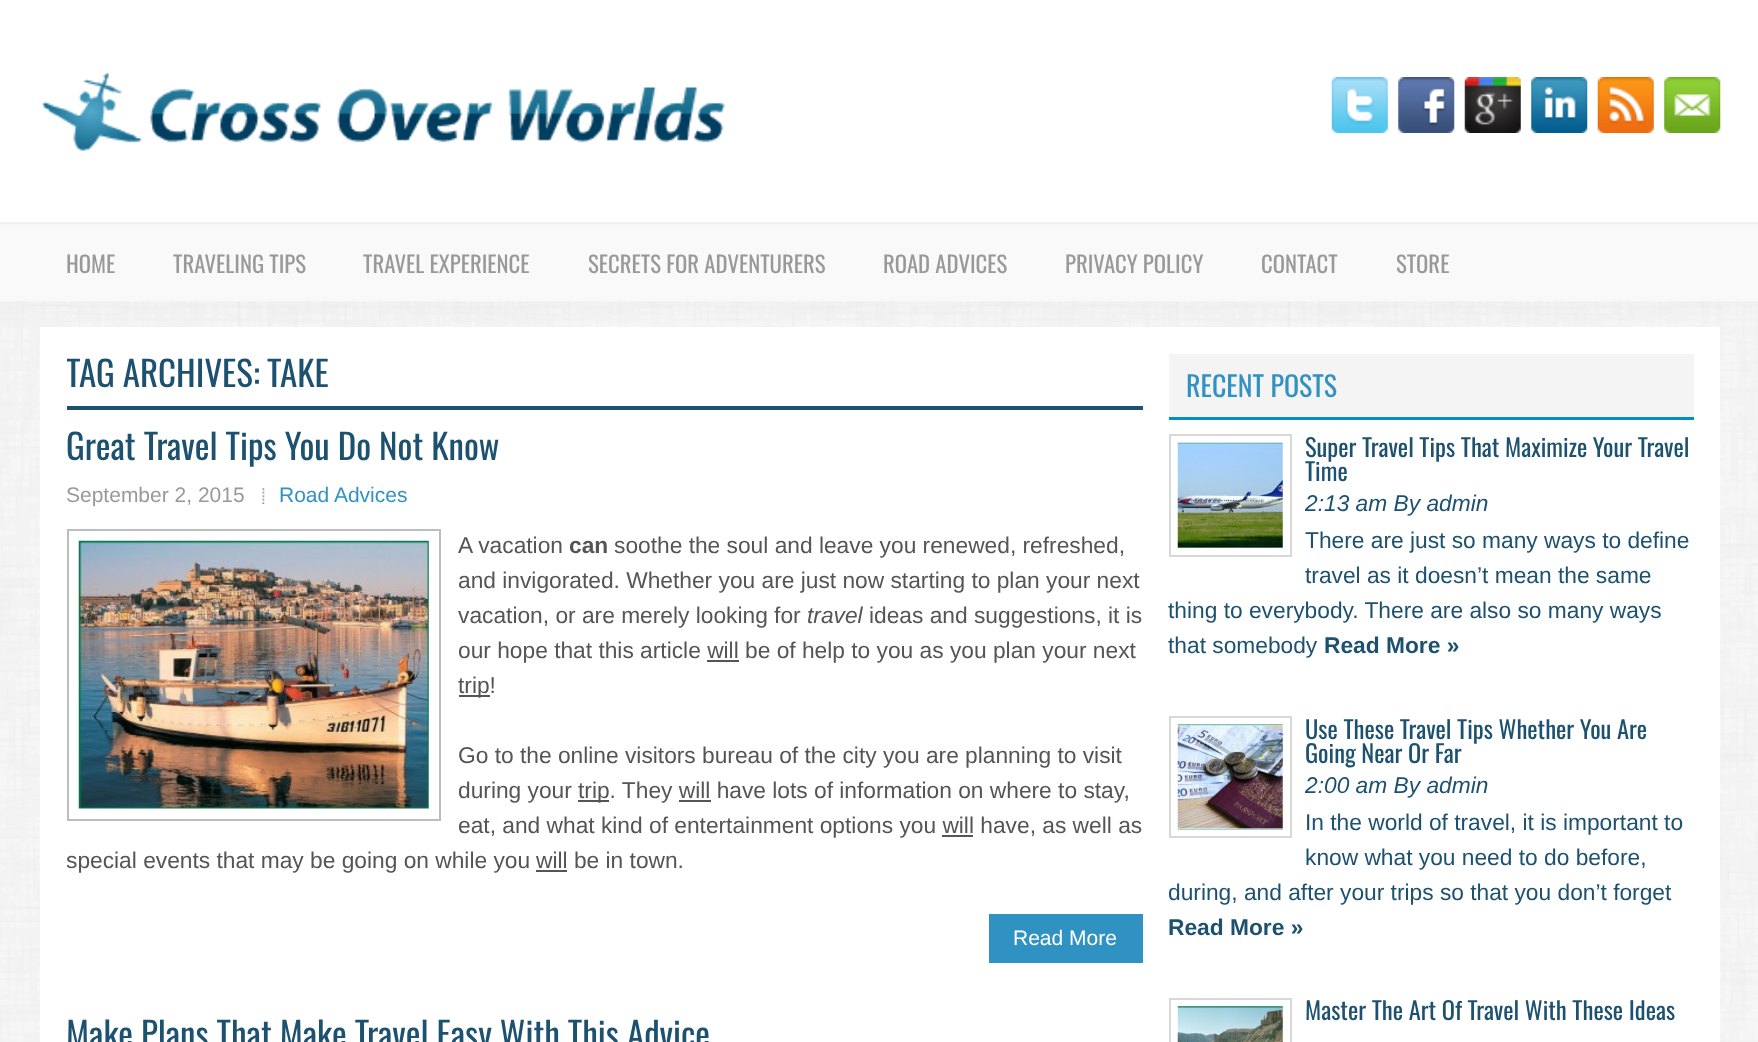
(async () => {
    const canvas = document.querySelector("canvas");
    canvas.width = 1758;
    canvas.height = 1042;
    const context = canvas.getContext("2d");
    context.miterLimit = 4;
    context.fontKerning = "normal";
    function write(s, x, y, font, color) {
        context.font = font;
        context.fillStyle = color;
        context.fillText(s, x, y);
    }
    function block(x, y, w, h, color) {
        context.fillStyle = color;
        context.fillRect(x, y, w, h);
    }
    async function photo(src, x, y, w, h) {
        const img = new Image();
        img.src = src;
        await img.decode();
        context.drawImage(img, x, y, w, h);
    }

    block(0, 0, 1758, 1042, "rgb(255, 255, 255)");
    await photo("media/1.png", 0, 222, 1758, 820);
    await photo("media/2.png", 41, 73, 684, 78);
    await photo("media/3.png", 1331, 77, 57, 56);
    await photo("media/4.png", 1398, 77, 57, 56);
    await photo("media/5.png", 1464, 77, 57, 56);
    await photo("media/6.png", 1531, 77, 57, 56);
    await photo("media/7.png", 1597, 77, 57, 56);
    await photo("media/8.png", 1664, 77, 57, 56);
    write("HOME", 66, 273, "22.75px Oswald", "rgb(153, 153, 153)");
    write("TRAVELING TIPS", 173, 273, "22.75px Oswald", "rgb(153, 153, 153)");
    write("TRAVEL EXPERIENCE", 363, 273, "22.75px Oswald", "rgb(153, 153, 153)");
    write("SECRETS FOR ADVENTURERS", 588, 273, "22.75px Oswald", "rgb(153, 153, 153)");
    write("ROAD ADVICES", 883, 273, "22.75px Oswald", "rgb(153, 153, 153)");
    write("PRIVACY POLICY", 1065, 273, "22.75px Oswald", "rgb(153, 153, 153)");
    write("CONTACT", 1261, 273, "22.75px Oswald", "rgb(153, 153, 153)");
    write("STORE", 1396, 273, "22.75px Oswald", "rgb(153, 153, 153)");
    block(40, 327, 1680, 715, "rgb(255, 255, 255)");
    block(67, 406, 1076, 4, "rgb(28, 81, 112)");
    context.save();
    context.beginPath();
    context.rect(67, 354, 1076, 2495);
    context.clip();
    write("TAG ARCHIVES:", 66, 387, "35px Oswald", "rgb(28, 81, 112)");
    context.restore();
    write("TAKE", 267, 387, "35px Oswald", "rgb(28, 81, 112)");
    write("Great Travel Tips You Do Not Know", 66, 460, "35px Oswald", "rgb(28, 81, 112)");
    write("September 2, 2015", 66, 502, "21px Liberation Sans", "rgb(153, 153, 153)");
    await photo("media/9.png", 262, 488, 3, 16);
    write("Road Advices", 279, 502, "21px Liberation Sans", "rgb(49, 146, 194)");
    context.strokeStyle = "rgb(189, 189, 189)";
    context.lineWidth = 2;
    context.strokeRect(68, 530, 372, 290);
    await photo("media/10.png", 78, 540, 351, 269);
    write("A vacation", 458, 553, "22.75px Liberation Sans", "rgb(85, 85, 85)");
    write("can", 569, 553, "bold 22.75px Liberation Sans", "rgb(85, 85, 85)");
    write("soothe the soul and leave you renewed, refreshed,", 614, 553, "22.75px Liberation Sans", "rgb(85, 85, 85)");
    write("and invigorated. Whether you are just now starting to plan your next", 458, 588, "22.75px Liberation Sans", "rgb(85, 85, 85)");
    write("vacation, or are merely looking for", 458, 623, "22.75px Liberation Sans", "rgb(85, 85, 85)");
    write("travel", 807, 623, "italic 22.75px Liberation Sans", "rgb(85, 85, 85)");
    write("ideas and suggestions, it is", 869, 623, "22.75px Liberation Sans", "rgb(85, 85, 85)");
    write("our hope that this article will be of help to you as you plan your next", 458, 658, "22.75px Liberation Sans", "rgb(85, 85, 85)");
    block(707, 660, 32, 2, "rgb(85, 85, 85)");
    block(459, 695, 31, 2, "rgb(85, 85, 85)");
    write("trip!", 458, 693, "22.75px Liberation Sans", "rgb(85, 85, 85)");
    write("Go to the online visitors bureau of the city you are planning to visit", 458, 763, "22.75px Liberation Sans", "rgb(85, 85, 85)");
    write("during your", 458, 798, "22.75px Liberation Sans", "rgb(85, 85, 85)");
    block(578, 800, 31, 2, "rgb(85, 85, 85)");
    write("trip. They will have lots of information on where to stay,", 578, 798, "22.75px Liberation Sans", "rgb(85, 85, 85)");
    block(679, 800, 32, 2, "rgb(85, 85, 85)");
    write("eat, and what kind of entertainment options you will have, as well as", 458, 833, "22.75px Liberation Sans", "rgb(85, 85, 85)");
    block(942, 835, 31, 2, "rgb(85, 85, 85)");
    context.save();
    context.beginPath();
    context.rect(67, 354, 1076, 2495);
    context.clip();
    write("special events that may be going on while you", 66, 868, "22.75px Liberation Sans", "rgb(85, 85, 85)");
    context.restore();
    write("will be in town.", 536, 868, "22.75px Liberation Sans", "rgb(85, 85, 85)");
    block(536, 870, 31, 2, "rgb(85, 85, 85)");
    block(989, 914, 154, 49, "rgb(48, 146, 194)");
    write("Read More", 1013, 945, "21px Liberation Sans", "rgb(255, 255, 255)");
    write("Make Plans That Make Travel Easy With This Advice", 66, 1048, "35px Oswald", "rgb(28, 81, 112)");
    block(1169, 417, 525, 3, "rgb(0, 145, 191)");
    block(1169, 354, 525, 63, "rgb(244, 244, 244)");
    write("RECENT POSTS", 1186, 397, "28px Oswald", "rgb(49, 146, 194)");
    context.strokeStyle = "rgb(216, 216, 216)";
    context.strokeRect(1170, 435, 121, 121);
    await photo("media/11.png", 1177, 442, 106, 106);
    write("Super Travel Tips That Maximize Your Travel", 1305, 457, "24.5px Oswald", "rgb(28, 81, 112)");
    write("Time", 1305, 481, "24.5px Oswald", "rgb(28, 81, 112)");
    write("2:13 am By admin", 1305, 511, "italic 22.75px Liberation Sans", "rgb(28, 81, 112)");
    write("There are just so many ways to define", 1305, 548, "22.75px Liberation Sans", "rgb(28, 81, 112)");
    write("travel as it doesn’t mean the same", 1305, 583, "22.75px Liberation Sans", "rgb(28, 81, 112)");
    write("thing to everybody. There are also so many ways", 1168, 618, "22.75px Liberation Sans", "rgb(28, 81, 112)");
    write("that somebody", 1168, 653, "22.75px Liberation Sans", "rgb(28, 81, 112)");
    write("Read More »", 1324, 653, "bold 22.75px Liberation Sans", "rgb(28, 81, 112)");
    context.strokeRect(1170, 717, 121, 120);
    await photo("media/12.png", 1177, 724, 106, 106);
    write("Use These Travel Tips Whether You Are", 1305, 739, "24.5px Oswald", "rgb(28, 81, 112)");
    write("Going Near Or Far", 1305, 763, "24.5px Oswald", "rgb(28, 81, 112)");
    write("2:00 am By admin", 1305, 793, "italic 22.75px Liberation Sans", "rgb(28, 81, 112)");
    write("In the world of travel, it is important to", 1305, 830, "22.75px Liberation Sans", "rgb(28, 81, 112)");
    write("know what you need to do before,", 1305, 865, "22.75px Liberation Sans", "rgb(28, 81, 112)");
    write("during, and after your trips so that you don’t forget", 1168, 900, "22.75px Liberation Sans", "rgb(28, 81, 112)");
    write("Read More »", 1168, 935, "bold 22.75px Liberation Sans", "rgb(28, 81, 112)");
    context.strokeRect(1170, 999, 121, 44);
    await photo("media/13.png", 1177, 1006, 106, 36);
    write("Master The Art Of Travel With These Ideas", 1305, 1020, "24.5px Oswald", "rgb(28, 81, 112)");
})();
